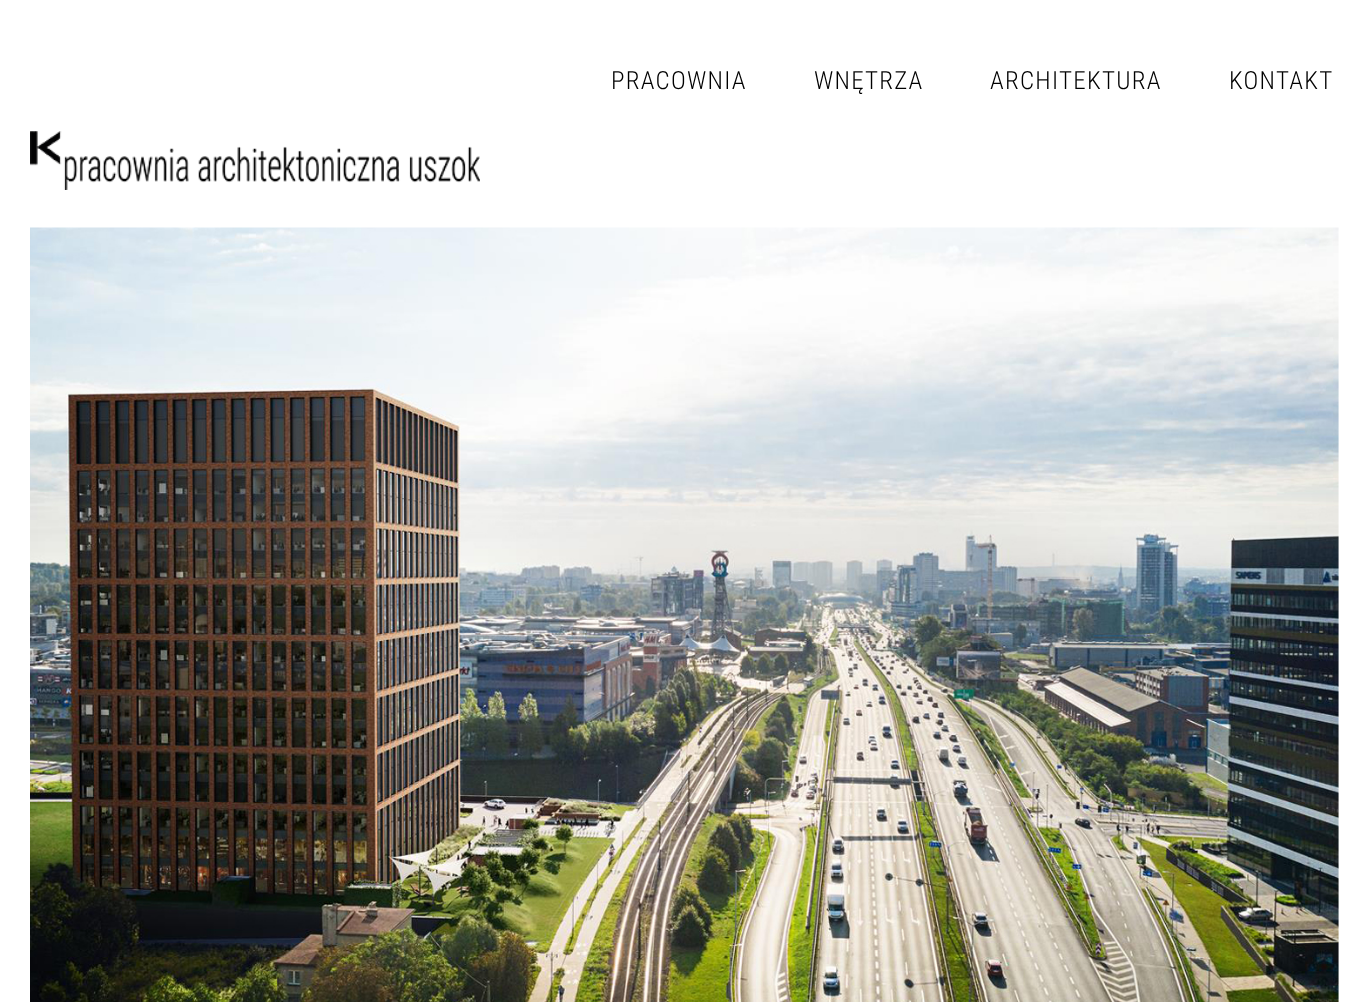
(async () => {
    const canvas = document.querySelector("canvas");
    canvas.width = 1368;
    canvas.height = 1002;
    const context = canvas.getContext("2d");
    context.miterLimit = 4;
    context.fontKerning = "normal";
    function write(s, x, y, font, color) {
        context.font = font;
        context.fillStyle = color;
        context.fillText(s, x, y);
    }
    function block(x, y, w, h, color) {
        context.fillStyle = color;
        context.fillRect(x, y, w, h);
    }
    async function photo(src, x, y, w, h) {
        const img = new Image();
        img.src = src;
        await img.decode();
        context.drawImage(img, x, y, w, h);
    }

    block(0, 0, 1368, 1002, "rgb(255, 255, 255)");
    context.letterSpacing = "1.25px";
    write("PRACOWNIA", 611, 89, "300 25px Roboto Condensed", "rgb(0, 0, 0)");
    write("WNĘTRZA", 814, 89, "300 25px Roboto Condensed", "rgb(0, 0, 0)");
    write("ARCHITEKTURA", 990, 89, "300 25px Roboto Condensed", "rgb(0, 0, 0)");
    write("KONTAKT", 1229, 89, "300 25px Roboto Condensed", "rgb(0, 0, 0)");
    await photo("media/1.png", 30, 131, 450, 59);
    await photo("media/2.png", 30, 227, 1309, 775);
})();
